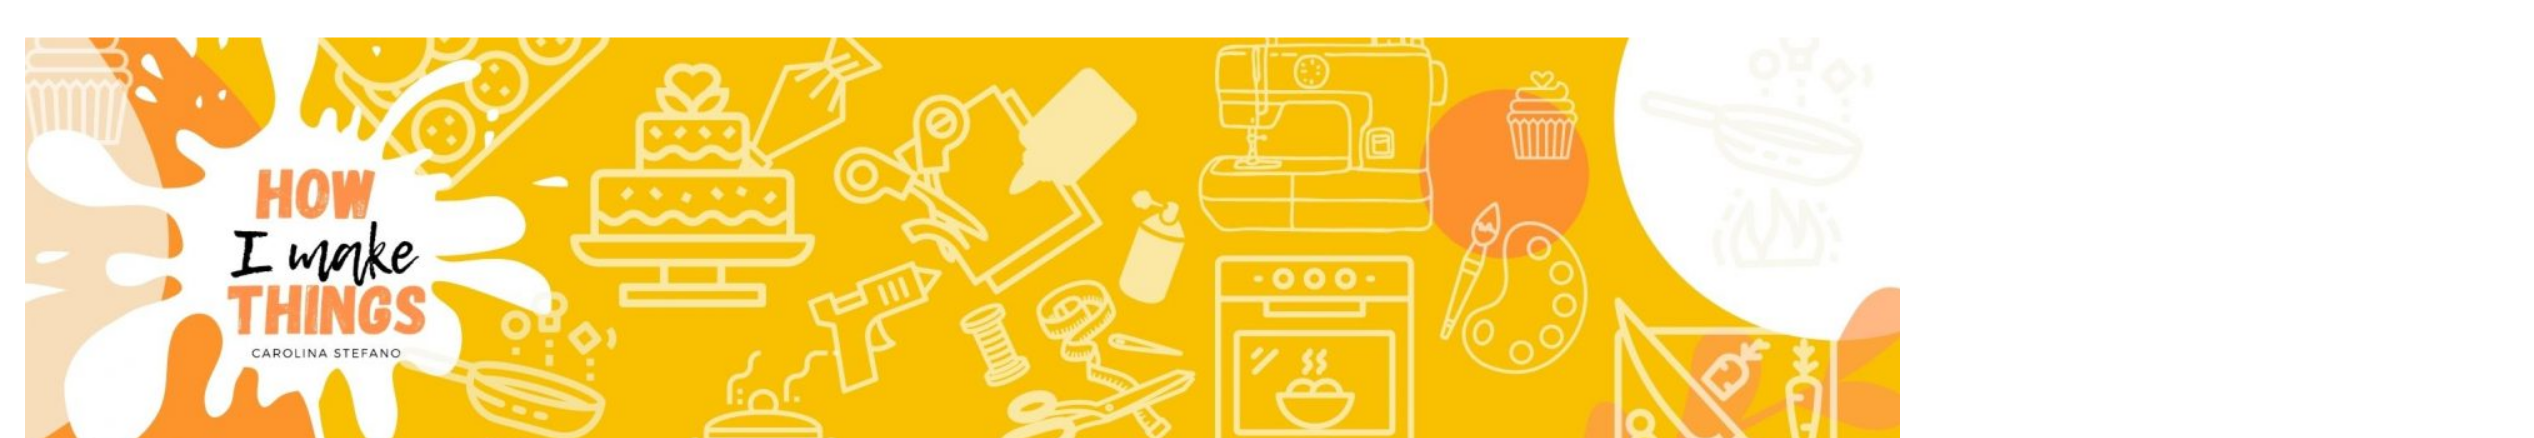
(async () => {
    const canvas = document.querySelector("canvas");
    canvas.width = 2534;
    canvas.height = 438;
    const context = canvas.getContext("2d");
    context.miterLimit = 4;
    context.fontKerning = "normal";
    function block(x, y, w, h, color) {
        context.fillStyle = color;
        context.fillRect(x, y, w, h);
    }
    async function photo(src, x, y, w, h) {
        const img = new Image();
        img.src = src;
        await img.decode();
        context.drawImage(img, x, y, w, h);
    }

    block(0, 0, 2534, 438, "rgb(255, 255, 255)");
    await photo("media/1.png", 25, 37, 1875, 401);
})();
